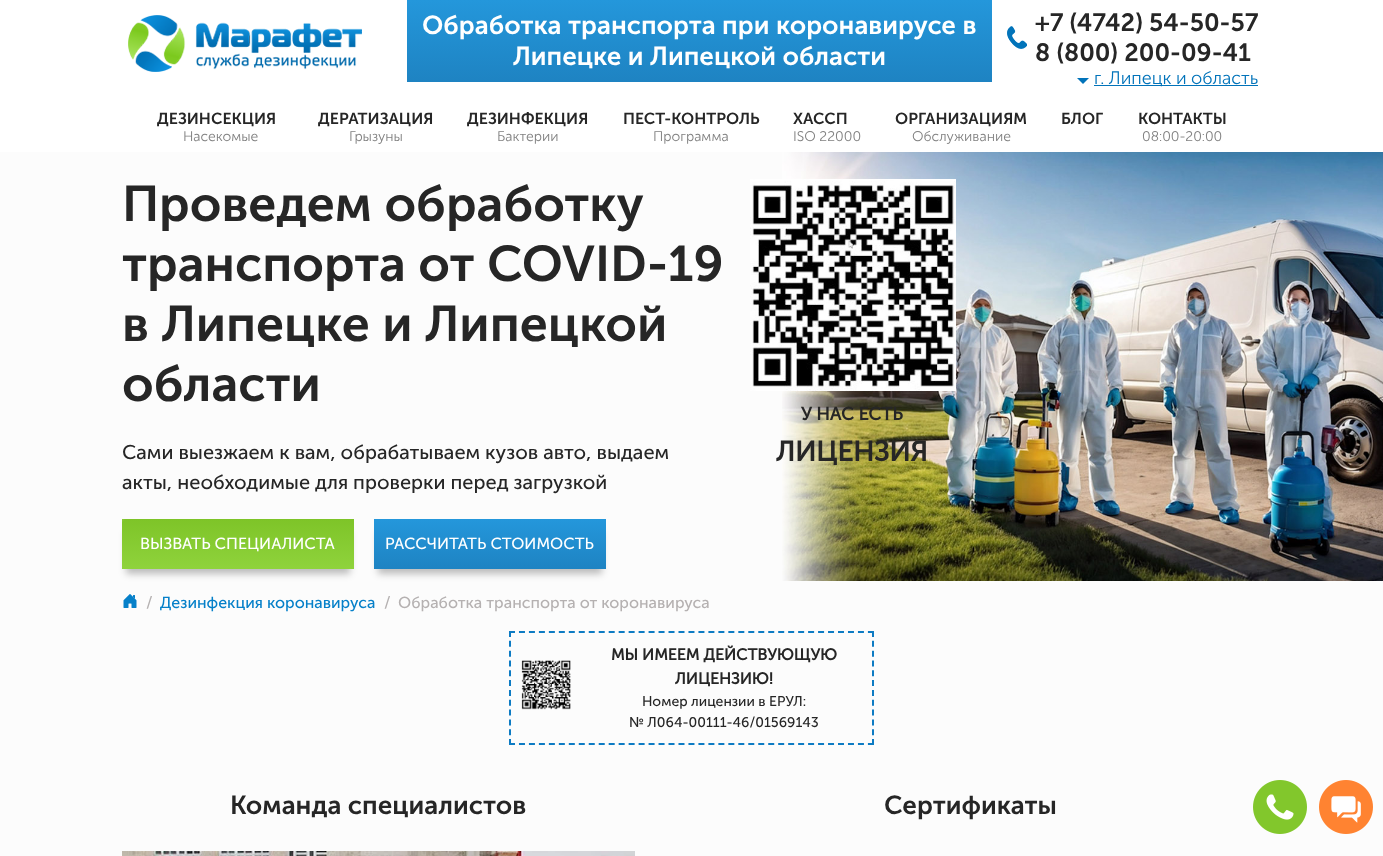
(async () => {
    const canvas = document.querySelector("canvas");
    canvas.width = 1383;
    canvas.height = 856;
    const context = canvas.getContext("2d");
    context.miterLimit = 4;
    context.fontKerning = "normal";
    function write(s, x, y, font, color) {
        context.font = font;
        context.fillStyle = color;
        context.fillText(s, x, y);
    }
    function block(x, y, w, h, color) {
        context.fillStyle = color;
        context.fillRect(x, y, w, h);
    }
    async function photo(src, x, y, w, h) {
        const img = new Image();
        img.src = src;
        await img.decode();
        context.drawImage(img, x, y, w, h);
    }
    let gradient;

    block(0, 0, 1383, 856, "rgb(252, 252, 252)");
    block(0, 0, 1383, 152, "rgb(255, 255, 255)");
    await photo("media/1.png", 128, 15, 234, 57);
    gradient = context.createLinearGradient(700, 0, 700, 82);
    gradient.addColorStop(0, "rgb(36, 151, 219)");
    gradient.addColorStop(1, "rgb(30, 131, 194)");
    context.fillStyle = gradient;
    context.fillRect(407, 0, 585, 82);
    write("Обработка транспорта при коронавирусе в", 422, 34, "600 26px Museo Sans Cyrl", "rgb(255, 255, 255)");
    write("Липецке и Липецкой области", 513, 65, "600 26px Museo Sans Cyrl", "rgb(255, 255, 255)");
    await photo("media/2.png", 1007, 26, 20, 23);
    write("+7 (4742) 54-50-57", 1035, 31, "600 25px Museo Sans Cyrl", "rgb(38, 38, 38)");
    write("8 (800) 200-09-41", 1035, 61, "600 25px Museo Sans Cyrl", "rgb(38, 38, 38)");
    context.fillStyle = "rgb(1, 115, 186)";
    context.beginPath();
    context.moveTo(1077, 78);
    context.lineTo(1089, 78);
    context.lineTo(1083, 84);
    context.closePath();
    context.fill();
    block(1094, 85, 164, 1, "rgb(1, 115, 186)");
    write("г. Липецк и область", 1094, 84, "300 18px Museo Sans Cyrl", "rgb(1, 115, 186)");
    write("ДЕЗИНСЕКЦИЯ", 157, 124, "600 16px Museo Sans Cyrl", "rgb(38, 38, 38)");
    write("Насекомые", 183, 141, "300 14px Museo Sans Cyrl", "rgb(129, 129, 129)");
    write("ДЕРАТИЗАЦИЯ", 318, 124, "600 16px Museo Sans Cyrl", "rgb(38, 38, 38)");
    write("Грызуны", 349, 141, "300 14px Museo Sans Cyrl", "rgb(129, 129, 129)");
    write("ДЕЗИНФЕКЦИЯ", 467, 124, "600 16px Museo Sans Cyrl", "rgb(38, 38, 38)");
    write("Бактерии", 497, 141, "300 14px Museo Sans Cyrl", "rgb(129, 129, 129)");
    write("ПЕСТ-КОНТРОЛЬ", 623, 124, "600 16px Museo Sans Cyrl", "rgb(38, 38, 38)");
    write("Программа", 653, 141, "300 14px Museo Sans Cyrl", "rgb(129, 129, 129)");
    write("ХАССП", 793, 124, "600 16px Museo Sans Cyrl", "rgb(38, 38, 38)");
    write("ISO 22000", 793, 141, "300 14px Museo Sans Cyrl", "rgb(129, 129, 129)");
    write("ОРГАНИЗАЦИЯМ", 895, 124, "600 16px Museo Sans Cyrl", "rgb(38, 38, 38)");
    write("Обслуживание", 912, 141, "300 14px Museo Sans Cyrl", "rgb(129, 129, 129)");
    write("БЛОГ", 1061, 124, "600 16px Museo Sans Cyrl", "rgb(38, 38, 38)");
    write("КОНТАКТЫ", 1138, 124, "600 16px Museo Sans Cyrl", "rgb(38, 38, 38)");
    write("08:00-20:00", 1142, 141, "300 14px Museo Sans Cyrl", "rgb(129, 129, 129)");
    await photo("media/3.png", 782, 152, 601, 429);
    write("Проведем обработку", 122, 221, "600 50px Museo Sans Cyrl", "rgb(38, 38, 38)");
    write("транспорта от COVID-19", 122, 281, "600 50px Museo Sans Cyrl", "rgb(38, 38, 38)");
    write("в Липецке и Липецкой", 122, 341, "600 50px Museo Sans Cyrl", "rgb(38, 38, 38)");
    write("области", 122, 401, "600 50px Museo Sans Cyrl", "rgb(38, 38, 38)");
    write("Сами выезжаем к вам, обрабатываем кузов авто, выдаем", 122, 459, "20px Museo Sans Cyrl", "rgb(38, 38, 38)");
    write("акты, необходимые для проверки перед загрузкой", 122, 489, "20px Museo Sans Cyrl", "rgb(38, 38, 38)");
    await photo("media/4.png", 750, 179, 206, 212);
    write("У НАС ЕСТЬ", 801, 420, "bold 18px Museo Sans Cyrl", "rgb(38, 38, 38)");
    write("ЛИЦЕНЗИЯ", 776, 461, "bold 28px Museo Sans Cyrl", "rgb(38, 38, 38)");
    context.fillStyle = "rgba(0, 0, 0, 0.25)";
    context.filter = "blur(3.5px)";
    context.beginPath();
    context.rect(126, 532, 224, 42);
    context.fill();
    context.filter = "none";
    gradient = context.createLinearGradient(238, 519, 238, 569);
    gradient.addColorStop(0, "rgb(126, 196, 40)");
    gradient.addColorStop(1, "rgb(143, 211, 60)");
    context.fillStyle = gradient;
    context.fillRect(122, 519, 232, 50);
    context.save();
    context.beginPath();
    context.rect(122, 519, 232, 50);
    context.clip();
    gradient = context.createLinearGradient(86, 559, 58, 530);
    gradient.addColorStop(0, "rgb(127, 196, 41)");
    gradient.addColorStop(0.5, "rgb(191, 226, 148)");
    gradient.addColorStop(1, "rgb(127, 196, 41)");
    context.fillStyle = gradient;
    context.beginPath();
    context.moveTo(97, 491);
    context.lineTo(125, 520);
    context.lineTo(47, 597);
    context.lineTo(19, 569);
    context.closePath();
    context.fill();
    context.restore();
    write("ВЫЗВАТЬ СПЕЦИАЛИСТА", 140, 549, "16px Museo Sans Cyrl", "rgb(255, 255, 255)");
    context.fillStyle = "rgba(0, 0, 0, 0.25)";
    context.filter = "blur(3.5px)";
    context.beginPath();
    context.rect(378, 532, 224, 42);
    context.fill();
    context.filter = "none";
    gradient = context.createLinearGradient(490, 519, 490, 569);
    gradient.addColorStop(0, "rgb(36, 151, 219)");
    gradient.addColorStop(1, "rgb(30, 131, 194)");
    context.fillStyle = gradient;
    context.fillRect(374, 519, 232, 50);
    write("РАССЧИТАТЬ СТОИМОСТЬ", 385, 549, "16px Museo Sans Cyrl", "rgb(255, 255, 255)");
    await photo("media/5.png", 123, 594, 14, 14);
    write("/", 146, 608, "16px Museo Sans Cyrl", "rgb(181, 177, 177)");
    write("Дезинфекция коронавируса", 160, 608, "16px Museo Sans Cyrl", "rgb(6, 128, 201)");
    write("/", 384, 608, "16px Museo Sans Cyrl", "rgb(181, 177, 177)");
    write("Обработка транспорта от коронавируса", 398, 608, "16px Museo Sans Cyrl", "rgb(181, 177, 177)");
    context.beginPath();
    context.moveTo(509, 632);
    context.lineTo(874, 632);
    context.strokeStyle = "rgb(13, 123, 195)";
    context.lineWidth = 2;
    context.setLineDash([6, 3.97]);
    context.stroke();
    context.beginPath();
    context.moveTo(873, 631);
    context.lineTo(873, 745);
    context.setLineDash([6, 3.82]);
    context.stroke();
    context.beginPath();
    context.moveTo(509, 744);
    context.lineTo(874, 744);
    context.setLineDash([6, 3.97]);
    context.stroke();
    context.beginPath();
    context.moveTo(510, 631);
    context.lineTo(510, 745);
    context.setLineDash([6, 3.82]);
    context.stroke();
    await photo("media/6.png", 521, 660, 50, 50);
    write("МЫ ИМЕЕМ ДЕЙСТВУЮЩУЮ", 611, 660, "bold 16px Museo Sans Cyrl", "rgb(38, 38, 38)");
    write("ЛИЦЕНЗИЮ!", 675, 684, "bold 16px Museo Sans Cyrl", "rgb(38, 38, 38)");
    write("Номер лицензии в ЕРУЛ:", 642, 706, "14px Museo Sans Cyrl", "rgb(38, 38, 38)");
    write("№ Л064-00111-46/01569143", 629, 727, "14px Museo Sans Cyrl", "rgb(38, 38, 38)");
    write("Команда специалистов", 230, 814, "600 26px Museo Sans Cyrl", "rgb(38, 38, 38)");
    await photo("media/7.png", 122, 851, 513, 5);
    write("Сертификаты", 884, 814, "600 26px Museo Sans Cyrl", "rgb(38, 38, 38)");
    await photo("media/8.png", 1253, 780, 54, 54);
    await photo("media/9.png", 1319, 780, 54, 54);
})();
